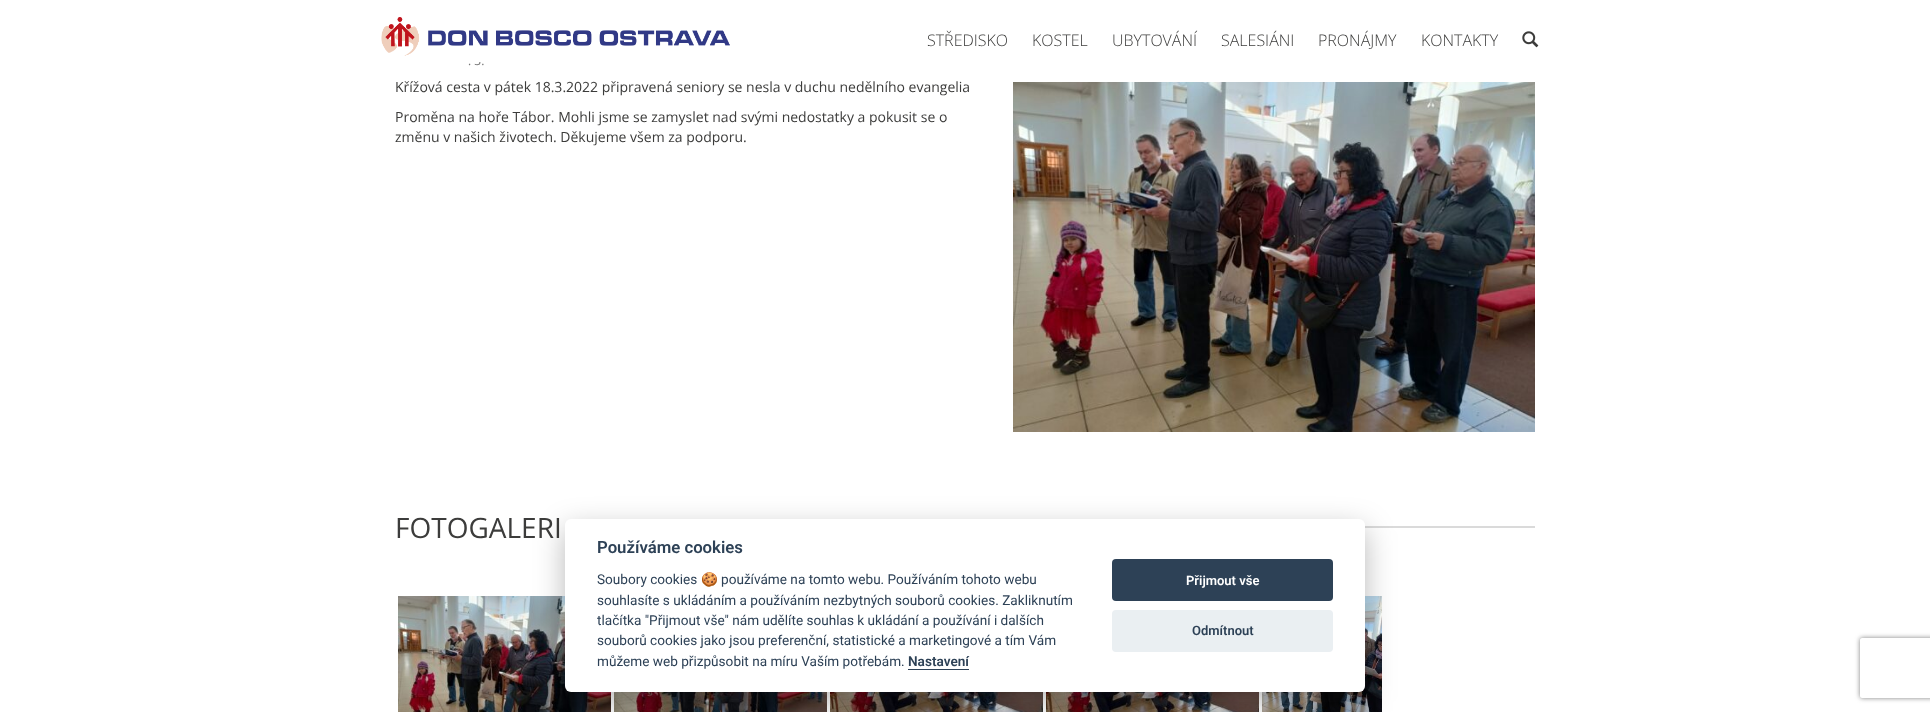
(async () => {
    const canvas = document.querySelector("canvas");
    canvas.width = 1930;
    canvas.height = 712;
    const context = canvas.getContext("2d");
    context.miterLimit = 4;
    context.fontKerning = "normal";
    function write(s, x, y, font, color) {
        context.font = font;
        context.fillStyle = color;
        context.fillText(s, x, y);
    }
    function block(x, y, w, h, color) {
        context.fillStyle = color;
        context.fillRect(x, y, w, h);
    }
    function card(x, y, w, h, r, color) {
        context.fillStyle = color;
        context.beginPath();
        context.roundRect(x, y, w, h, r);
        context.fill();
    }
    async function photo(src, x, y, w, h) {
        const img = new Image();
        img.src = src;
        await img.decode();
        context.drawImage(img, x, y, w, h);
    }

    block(0, 0, 1930, 712, "rgb(255, 255, 255)");
    write(". 3.", 468, 65, "12px Open Sans", "rgb(119, 119, 119)");
    block(474, 56, 7, 6, "rgb(255, 255, 255)");
    await photo("media/1.png", 381, 17, 349, 39);
    write("STŘEDISKO", 927, 46, "300 16px Open Sans", "rgb(60, 60, 59)");
    write("KOSTEL", 1032, 46, "300 16px Open Sans", "rgb(60, 60, 59)");
    write("UBYTOVÁNÍ", 1112, 46, "300 16px Open Sans", "rgb(60, 60, 59)");
    write("SALESIÁNI", 1221, 46, "300 16px Open Sans", "rgb(60, 60, 59)");
    write("PRONÁJMY", 1318, 46, "300 16px Open Sans", "rgb(60, 60, 59)");
    write("KONTAKTY", 1421, 46, "300 16px Open Sans", "rgb(60, 60, 59)");
    await photo("media/2.png", 1522, 31, 17, 17);
    write("Křížová cesta v pátek 18.3.2022 připravená seniory se nesla v duchu nedělního evangelia", 395, 92, "14px Open Sans", "rgb(60, 60, 59)");
    await photo("media/3.png", 1013, 82, 522, 350);
    write("Proměna na hoře Tábor. Mohli jsme se zamyslet nad svými nedostatky a pokusit se o", 395, 122, "14px Open Sans", "rgb(60, 60, 59)");
    write("změnu v našich životech. Děkujeme všem za podporu.", 395, 142, "14px Open Sans", "rgb(60, 60, 59)");
    write("FOTOGALERI", 395, 538, "28px Open Sans", "rgb(60, 60, 59)");
    block(1365, 526, 170, 2, "rgb(218, 218, 218)");
    await photo("media/4.png", 398, 596, 213, 116);
    await photo("media/5.png", 614, 692, 213, 20);
    await photo("media/6.png", 830, 692, 213, 20);
    await photo("media/7.png", 1046, 692, 213, 20);
    await photo("media/8.png", 1262, 596, 120, 116);
    context.fillStyle = "rgba(2, 2, 3, 0.28)";
    context.filter = "blur(15px)";
    context.beginPath();
    context.roundRect(565, 529, 800, 173, 6);
    context.fill();
    context.filter = "none";
    card(565, 519, 800, 173, 6, "rgb(255, 255, 255)");
    write("Používáme cookies", 597, 553, "600 16.75px Roboto", "rgb(45, 65, 86)");
    write("Soubory cookies", 597, 584, "13.6px Roboto", "rgb(45, 65, 86)");
    write("🍪", 701, 584, "13.6px Noto Color Emoji", "rgb(45, 65, 86)");
    write("používáme na tomto webu. Používáním tohoto webu", 721, 584, "13.6px Roboto", "rgb(45, 65, 86)");
    write("souhlasíte s ukládáním a používáním nezbytných souborů cookies. Zakliknutím", 597, 605, "13.6px Roboto", "rgb(45, 65, 86)");
    write("tlačítka \"Přijmout vše\" nám udělíte souhlas k ukládání a používání i dalších", 597, 625, "13.6px Roboto", "rgb(45, 65, 86)");
    write("souborů cookies jako jsou preferenční, statistické a marketingové a tím Vám", 597, 645, "13.6px Roboto", "rgb(45, 65, 86)");
    write("můžeme web přizpůsobit na míru Vaším potřebám.", 597, 666, "13.6px Roboto", "rgb(45, 65, 86)");
    write("Nastavení", 908, 666, "600 13.6px Roboto", "rgb(45, 65, 86)");
    block(908, 669, 61, 1, "rgb(45, 65, 86)");
    card(1112, 559, 221, 42, 4, "rgb(45, 65, 86)");
    write("Přijmout vše", 1186, 585, "600 13px Roboto", "rgb(255, 255, 255)");
    card(1112, 610, 221, 42, 4, "rgb(234, 239, 242)");
    write("Odmítnout", 1192, 635, "600 13px Roboto", "rgb(45, 65, 86)");
    context.save();
    context.beginPath();
    context.moveTo(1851, 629);
    context.lineTo(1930, 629);
    context.lineTo(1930, 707);
    context.lineTo(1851, 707);
    context.closePath();
    context.moveTo(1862, 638);
    context.lineTo(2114, 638);
    context.bezierCurveTo(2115, 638, 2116, 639, 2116, 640);
    context.lineTo(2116, 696);
    context.bezierCurveTo(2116, 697, 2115, 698, 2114, 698);
    context.lineTo(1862, 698);
    context.bezierCurveTo(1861, 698, 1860, 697, 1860, 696);
    context.lineTo(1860, 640);
    context.bezierCurveTo(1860, 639, 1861, 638, 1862, 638);
    context.closePath();
    context.clip("evenodd");
    context.fillStyle = "rgb(128, 128, 128)";
    context.filter = "blur(2.5px)";
    context.beginPath();
    context.roundRect(1860, 638, 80, 60, 2);
    context.fill();
    context.filter = "none";
    context.restore();
})();
